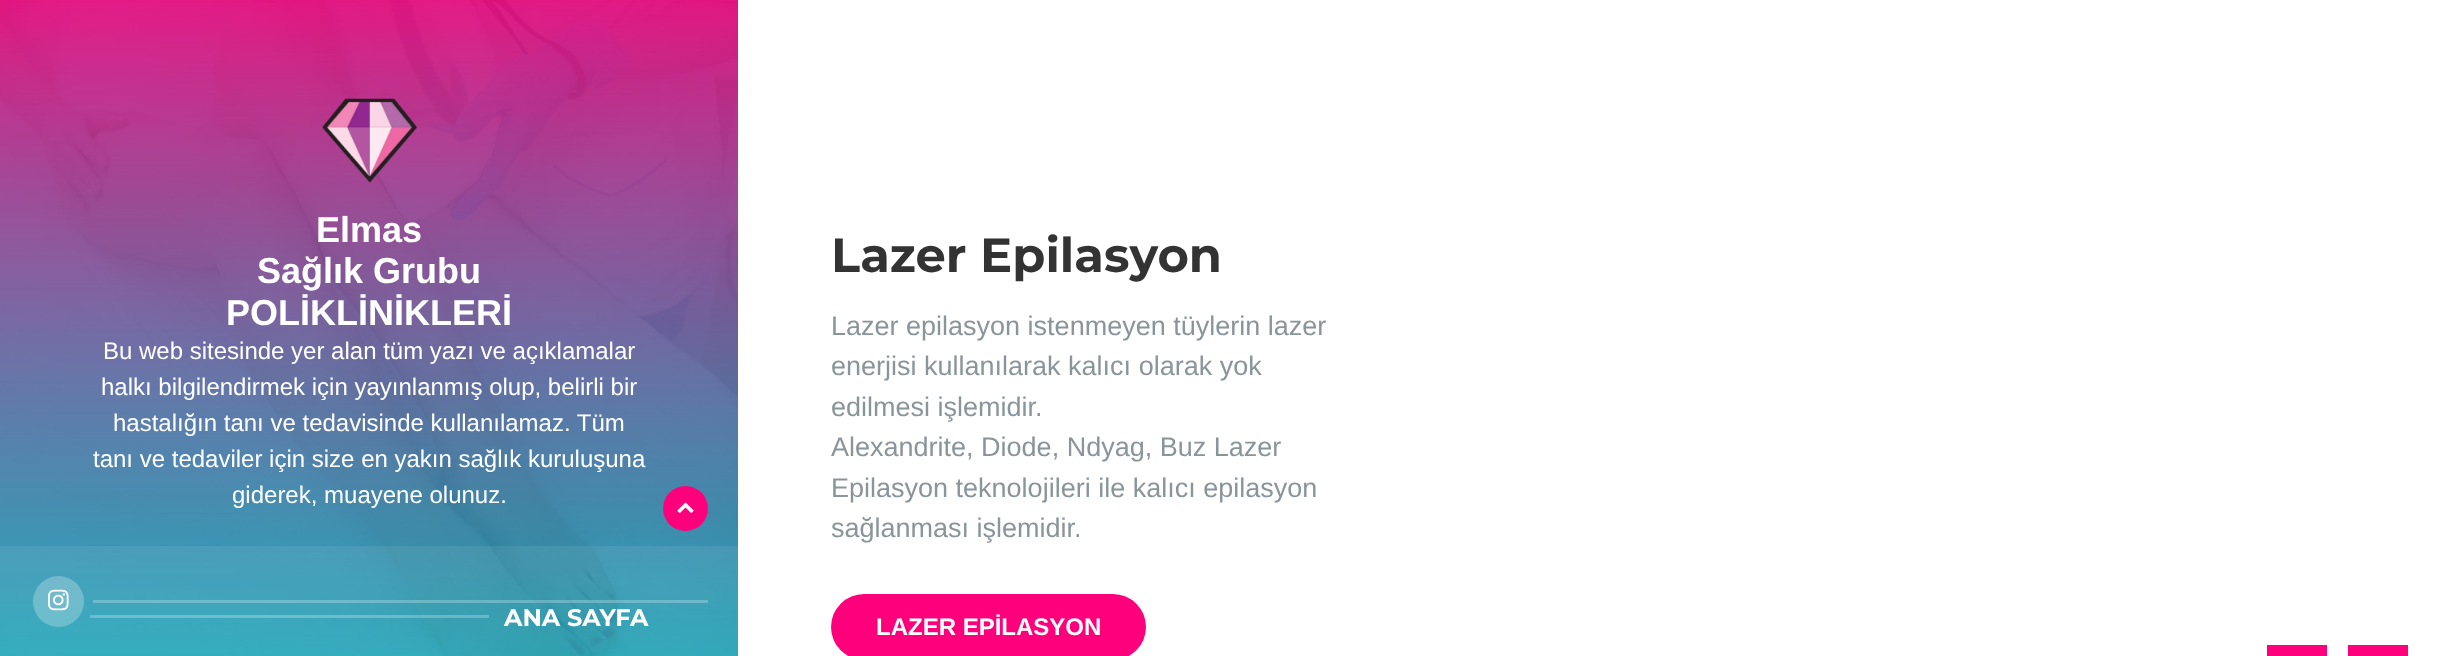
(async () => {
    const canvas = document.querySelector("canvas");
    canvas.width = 2459;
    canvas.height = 656;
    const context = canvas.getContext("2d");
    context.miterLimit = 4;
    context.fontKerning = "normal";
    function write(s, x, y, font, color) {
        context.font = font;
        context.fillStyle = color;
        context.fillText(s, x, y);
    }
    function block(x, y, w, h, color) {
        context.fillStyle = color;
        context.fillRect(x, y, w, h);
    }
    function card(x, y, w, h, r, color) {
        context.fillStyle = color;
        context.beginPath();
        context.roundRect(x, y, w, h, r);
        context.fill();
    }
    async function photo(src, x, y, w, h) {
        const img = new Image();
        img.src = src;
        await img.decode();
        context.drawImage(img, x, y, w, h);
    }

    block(0, 0, 2459, 656, "rgb(255, 255, 255)");
    await photo("media/1.png", 0, 0, 738, 656);
    await photo("media/2.png", 322, 98, 95, 85);
    write("Elmas", 316, 242, "bold 36px Liberation Sans", "rgb(255, 255, 255)");
    write("Sağlık Grubu", 257, 283, "bold 36px Liberation Sans", "rgb(255, 255, 255)");
    write("POLİKLİNİKLERİ", 226, 325, "bold 36px Liberation Sans", "rgb(255, 255, 255)");
    write("Bu web sitesinde yer alan tüm yazı ve açıklamalar", 103, 359, "24px Liberation Sans", "rgb(255, 255, 255)");
    write("halkı bilgilendirmek için yayınlanmış olup, belirli bir", 101, 395, "24px Liberation Sans", "rgb(255, 255, 255)");
    write("hastalığın tanı ve tedavisinde kullanılamaz. Tüm", 113, 431, "24px Liberation Sans", "rgb(255, 255, 255)");
    write("tanı ve tedaviler için size en yakın sağlık kuruluşuna", 93, 467, "24px Liberation Sans", "rgb(255, 255, 255)");
    write("giderek, muayene olunuz.", 232, 503, "24px Liberation Sans", "rgb(255, 255, 255)");
    block(90, 615, 399, 3, "rgba(255, 255, 255, 0.25)");
    block(0, 546, 738, 110, "rgba(255, 255, 255, 0.08)");
    context.fillStyle = "rgb(255, 0, 124)";
    context.beginPath();
    context.arc(685.5, 508.5, 22.5, 0, Math.PI * 2);
    context.fill();
    await photo("media/3.png", 677, 502, 17, 11);
    context.fillStyle = "rgba(255, 255, 255, 0.25)";
    context.beginPath();
    context.arc(58.5, 601.5, 25.5, 0, Math.PI * 2);
    context.fill();
    await photo("media/4.png", 48, 589, 21, 22);
    block(93, 600, 615, 3, "rgba(255, 255, 255, 0.25)");
    write("ANA SAYFA", 504, 626, "bold 24px Montserrat", "rgb(255, 255, 255)");
    write("Lazer Epilasyon", 831, 272, "bold 48px Montserrat", "rgb(51, 51, 51)");
    write("Lazer epilasyon istenmeyen tüylerin lazer", 831, 335, "27px Liberation Sans", "rgb(138, 148, 155)");
    write("enerjisi kullanılarak kalıcı olarak yok", 831, 375, "27px Liberation Sans", "rgb(138, 148, 155)");
    write("edilmesi işlemidir.", 831, 416, "27px Liberation Sans", "rgb(138, 148, 155)");
    write("Alexandrite, Diode, Ndyag, Buz Lazer", 831, 456, "27px Liberation Sans", "rgb(138, 148, 155)");
    write("Epilasyon teknolojileri ile kalıcı epilasyon", 831, 497, "27px Liberation Sans", "rgb(138, 148, 155)");
    write("sağlanması işlemidir.", 831, 537, "27px Liberation Sans", "rgb(138, 148, 155)");
    card(831, 594, 315, 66, 33, "rgb(255, 0, 124)");
    write("LAZER EPİLASYON", 876, 635, "bold 24px Liberation Sans", "rgb(255, 255, 255)");
    block(2267, 645, 60, 11, "rgb(255, 0, 124)");
    block(2348, 645, 60, 11, "rgb(255, 0, 124)");
})();
